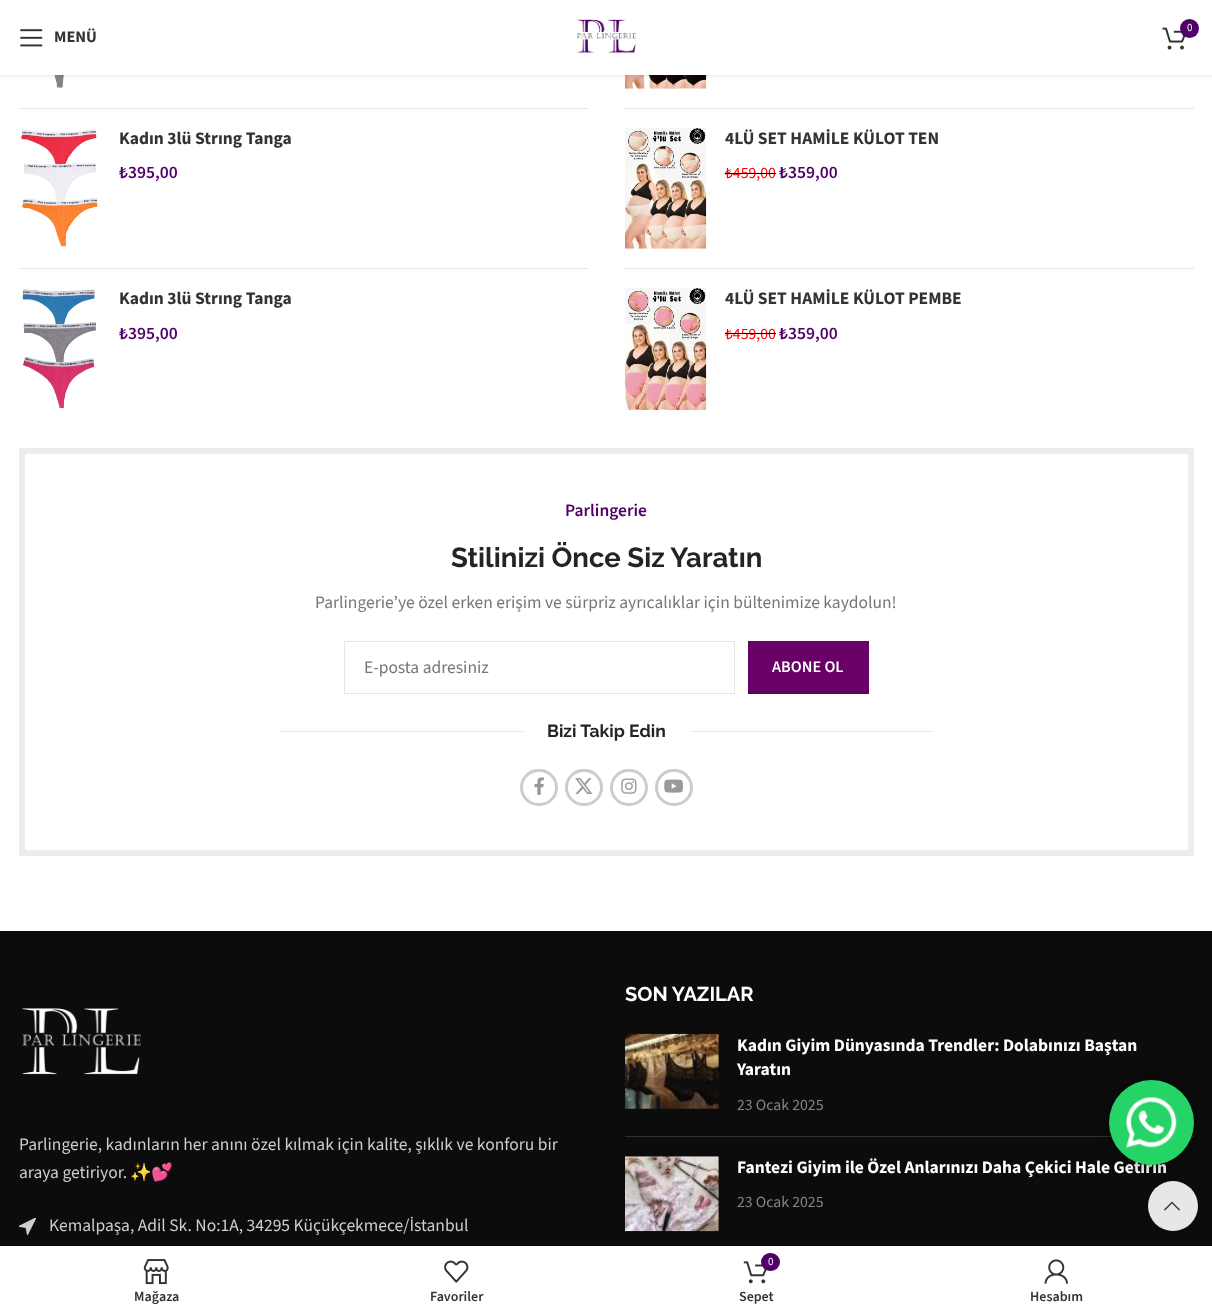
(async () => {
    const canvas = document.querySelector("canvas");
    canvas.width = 1212;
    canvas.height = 1315;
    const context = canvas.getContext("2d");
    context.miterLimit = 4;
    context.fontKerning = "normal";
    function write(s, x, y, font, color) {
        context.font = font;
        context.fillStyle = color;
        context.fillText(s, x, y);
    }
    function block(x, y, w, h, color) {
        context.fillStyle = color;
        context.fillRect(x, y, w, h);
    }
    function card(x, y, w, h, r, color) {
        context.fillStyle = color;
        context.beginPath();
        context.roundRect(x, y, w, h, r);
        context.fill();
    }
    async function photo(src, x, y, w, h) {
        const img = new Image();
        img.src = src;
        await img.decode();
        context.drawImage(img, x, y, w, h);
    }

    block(0, 0, 1212, 1315, "rgb(255, 255, 255)");
    await photo("media/4.png", 22, 75, 76, 13);
    await photo("media/7.png", 625, 75, 82, 14);
    context.fillStyle = "rgba(0, 0, 0, 0.1)";
    context.filter = "blur(2px)";
    context.beginPath();
    context.rect(0, 1, 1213, 75);
    context.fill();
    context.filter = "none";
    block(0, 0, 1212, 75, "rgb(255, 255, 255)");
    await photo("media/1.png", 20, 29, 23, 18);
    write("MENÜ", 54, 42, "bold 16.25px 'Source Sans 3'", "rgb(51, 51, 51)");
    await photo("media/2.png", 576, 19, 61, 35);
    await photo("media/3.png", 1162, 27, 24, 23);
    context.fillStyle = "rgb(79, 1, 105)";
    context.beginPath();
    context.arc(1189.5, 28.5, 9.5, 0, Math.PI * 2);
    context.fill();
    write("0", 1187, 31, "11px 'Source Sans 3'", "rgb(255, 255, 255)");
    block(19, 108, 569, 1, "rgb(228, 228, 228)");
    block(19, 268, 569, 1, "rgb(228, 228, 228)");
    await photo("media/5.png", 21, 129, 77, 118);
    write("Kadın 3lü Strıng Tanga", 119, 144, "bold 17.5px 'Source Sans 3'", "rgb(51, 51, 51)");
    write("₺395,00", 119, 178, "600 17.5px 'Source Sans 3'", "rgb(79, 1, 105)");
    await photo("media/6.png", 22, 289, 74, 120);
    write("Kadın 3lü Strıng Tanga", 119, 304, "bold 17.5px 'Source Sans 3'", "rgb(51, 51, 51)");
    write("₺395,00", 119, 339, "600 17.5px 'Source Sans 3'", "rgb(79, 1, 105)");
    block(625, 108, 569, 1, "rgb(228, 228, 228)");
    block(625, 268, 569, 1, "rgb(228, 228, 228)");
    await photo("media/8.png", 625, 128, 82, 121);
    write("4LÜ SET HAMİLE KÜLOT TEN", 725, 144, "bold 17.5px 'Source Sans 3'", "rgb(51, 51, 51)");
    write("₺459,00", 725, 178, "15.75px 'Source Sans 3'", "rgb(255, 0, 0)");
    block(725, 173, 51, 1, "rgb(0, 0, 0)");
    write("₺359,00", 779, 178, "600 17.5px 'Source Sans 3'", "rgb(79, 1, 105)");
    await photo("media/9.png", 625, 288, 82, 122);
    write("4LÜ SET HAMİLE KÜLOT PEMBE", 725, 304, "bold 17.5px 'Source Sans 3'", "rgb(51, 51, 51)");
    write("₺459,00", 725, 339, "15.75px 'Source Sans 3'", "rgb(255, 0, 0)");
    block(725, 333, 51, 1, "rgb(0, 0, 0)");
    write("₺359,00", 779, 339, "600 17.5px 'Source Sans 3'", "rgb(79, 1, 105)");
    context.strokeStyle = "rgb(237, 237, 237)";
    context.lineWidth = 6;
    context.strokeRect(22, 451, 1169, 402);
    write("Parlingerie", 565, 516, "600 17.5px 'Source Sans 3'", "rgb(79, 1, 105)");
    write("Stilinizi Önce Siz Yaratın", 451, 567, "bold 27.5px Raleway", "rgb(36, 36, 36)");
    write("Parlingerie’ye özel erken erişim ve sürpriz ayrıcalıklar için bültenimize kaydolun!", 315, 608, "17.5px 'Source Sans 3'", "rgb(118, 118, 118)");
    context.strokeStyle = "rgb(230, 230, 230)";
    context.lineWidth = 1;
    context.strokeRect(344.5, 641.5, 390, 52);
    write("E-posta adresiniz", 364, 673, "17.5px 'Source Sans 3'", "rgb(118, 118, 118)");
    block(748, 641, 121, 50, "rgb(105, 1, 105)");
    block(748, 691, 121, 3, "rgb(89, 1, 89)");
    write("ABONE OL", 772, 672, "600 16.25px 'Source Sans 3'", "rgb(255, 255, 255)");
    block(280, 731, 243, 1, "rgb(228, 228, 228)");
    write("Bizi Takip Edin", 547, 737, "bold 17.5px Raleway", "rgb(36, 36, 36)");
    block(691, 731, 242, 1, "rgb(228, 228, 228)");
    context.beginPath();
    context.roundRect(521.5, 770.5, 35, 34, 17);
    context.strokeStyle = "rgb(204, 204, 204)";
    context.lineWidth = 3;
    context.stroke();
    await photo("media/10.png", 534, 777, 10, 18);
    context.beginPath();
    context.roundRect(566.5, 770.5, 35, 34, 17);
    context.stroke();
    await photo("media/11.png", 575, 778, 18, 16);
    context.beginPath();
    context.roundRect(611.5, 770.5, 35, 34, 17);
    context.stroke();
    await photo("media/12.png", 621, 778, 16, 16);
    context.beginPath();
    context.roundRect(656.5, 770.5, 35, 34, 17);
    context.stroke();
    await photo("media/13.png", 664, 779, 19, 14);
    block(0, 931, 1212, 315, "rgb(12, 12, 12)");
    await photo("media/14.png", 21, 1008, 120, 67);
    write("Parlingerie, kadınların her anını özel kılmak için kalite, şıklık ve konforu bir", 19, 1150, "17.5px 'Source Sans 3'", "rgb(206, 206, 206)");
    write("araya getiriyor.", 19, 1178, "17.5px 'Source Sans 3'", "rgb(206, 206, 206)");
    write("✨💕", 130, 1178, "17.5px Noto Color Emoji", "rgb(206, 206, 206)");
    await photo("media/15.png", 19, 1218, 17, 17);
    write("Kemalpaşa, Adil Sk. No:1A, 34295 Küçükçekmece/İstanbul", 49, 1231, "17.5px 'Source Sans 3'", "rgb(206, 206, 206)");
    write("SON YAZILAR", 625, 1001, "bold 20px Raleway", "rgb(255, 255, 255)");
    block(625, 1136, 569, 1, "rgb(48, 48, 48)");
    await photo("media/16.png", 625, 1033, 94, 76);
    write("Kadın Giyim Dünyasında Trendler: Dolabınızı Baştan", 737, 1051, "bold 17.5px 'Source Sans 3'", "rgb(255, 255, 255)");
    write("Yaratın", 737, 1075, "bold 17.5px 'Source Sans 3'", "rgb(255, 255, 255)");
    write("23 Ocak 2025", 737, 1110, "15.75px 'Source Sans 3'", "rgb(134, 134, 134)");
    await photo("media/17.png", 625, 1156, 94, 76);
    write("Fantezi Giyim ile Özel Anlarınızı Daha Çekici Hale Getirin", 737, 1173, "bold 17.5px 'Source Sans 3'", "rgb(255, 255, 255)");
    write("23 Ocak 2025", 737, 1207, "15.75px 'Source Sans 3'", "rgb(134, 134, 134)");
    context.fillStyle = "rgb(231, 231, 231)";
    context.beginPath();
    context.arc(1173, 1206, 25, 0, Math.PI * 2);
    context.fill();
    context.fillStyle = "rgba(0, 0, 0, 0.5)";
    context.filter = "blur(7px)";
    context.beginPath();
    context.roundRect(1109, 1080, 85, 85, 42.5);
    context.fill();
    context.filter = "none";
    context.fillStyle = "rgb(37, 211, 102)";
    context.beginPath();
    context.arc(1151.5, 1122.5, 42.5, 0, Math.PI * 2);
    context.fill();
    await photo("media/18.png", 1126, 1097, 51, 51);
    await photo("media/19.png", 1163, 1201, 17, 10);
    await photo("media/20.png", 143, 1259, 26, 26);
    write("Mağaza", 134, 1301, "600 14px 'Source Sans 3'", "rgb(51, 51, 51)");
    await photo("media/21.png", 444, 1260, 25, 23);
    write("Favoriler", 430, 1301, "600 14px 'Source Sans 3'", "rgb(51, 51, 51)");
    await photo("media/22.png", 743, 1261, 24, 23);
    card(761, 1253, 19, 18, 9, "rgb(79, 1, 105)");
    write("0", 768, 1265, "11px 'Source Sans 3'", "rgb(255, 255, 255)");
    write("Sepet", 739, 1301, "600 14px 'Source Sans 3'", "rgb(51, 51, 51)");
    await photo("media/23.png", 1044, 1259, 24, 25);
    write("Hesabım", 1030, 1301, "600 14px 'Source Sans 3'", "rgb(51, 51, 51)");
})();
